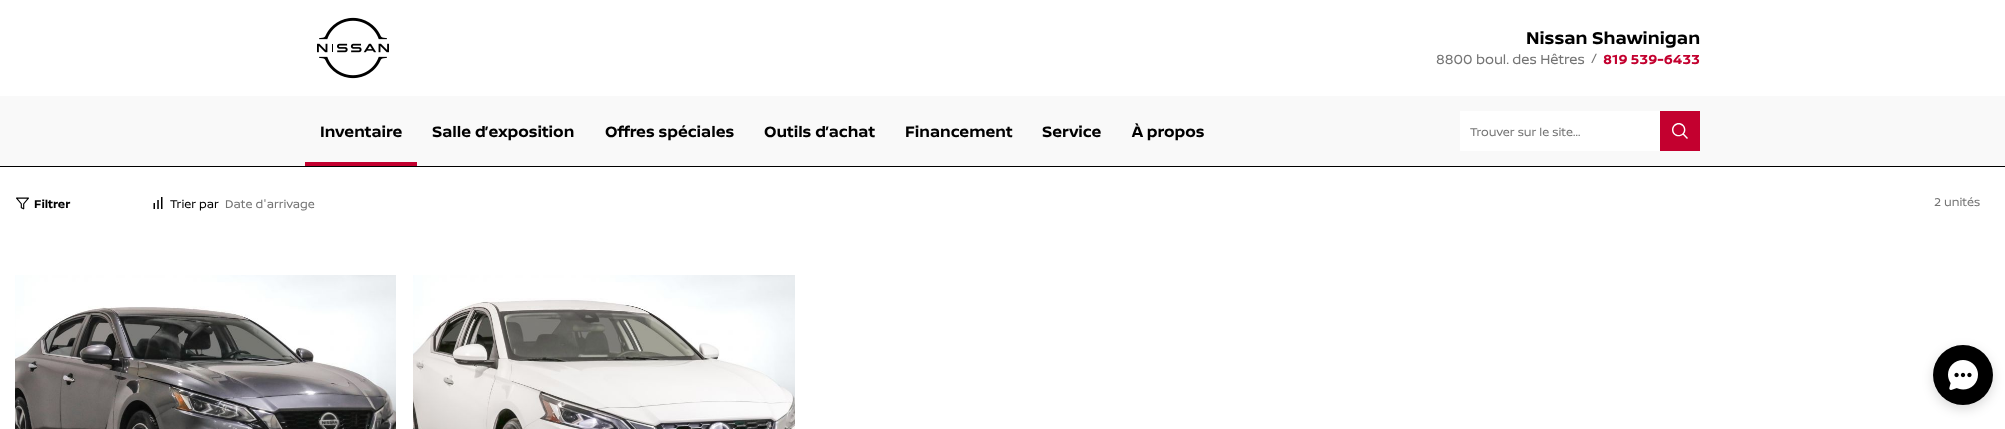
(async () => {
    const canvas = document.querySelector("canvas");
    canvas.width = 2005;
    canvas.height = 429;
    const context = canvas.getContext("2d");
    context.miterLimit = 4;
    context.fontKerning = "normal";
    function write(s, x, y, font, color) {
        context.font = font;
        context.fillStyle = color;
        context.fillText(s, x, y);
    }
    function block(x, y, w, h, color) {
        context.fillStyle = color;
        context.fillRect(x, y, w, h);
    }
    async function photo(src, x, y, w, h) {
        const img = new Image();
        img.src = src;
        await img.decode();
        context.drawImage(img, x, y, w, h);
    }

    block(0, 0, 2005, 429, "rgb(255, 255, 255)");
    await photo("media/1.png", 317, 17, 72, 62);
    write("Nissan Shawinigan", 1526, 44, "bold 18px 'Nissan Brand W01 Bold'", "rgb(0, 0, 0)");
    write("8800 boul. des Hêtres", 1436, 64, "14px 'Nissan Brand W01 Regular'", "rgb(117, 117, 117)");
    write("/", 1591, 62, "12px 'Nissan Brand W01 Regular'", "rgb(117, 117, 117)");
    write("819 539-6433", 1603, 64, "bold 14px 'Nissan Brand W01 Bold'", "rgb(195, 0, 47)");
    block(0, 96, 2005, 70, "rgb(249, 249, 249)");
    write("Inventaire", 320, 137, "bold 16px 'Nissan Brand W01 Bold'", "rgb(0, 0, 0)");
    block(305, 162, 112, 4, "rgb(195, 0, 47)");
    write("Salle d’exposition", 432, 137, "bold 16px 'Nissan Brand W01 Bold'", "rgb(0, 0, 0)");
    write("Offres spéciales", 605, 137, "bold 16px 'Nissan Brand W01 Bold'", "rgb(0, 0, 0)");
    write("Outils d’achat", 764, 137, "bold 16px 'Nissan Brand W01 Bold'", "rgb(0, 0, 0)");
    write("Financement", 905, 137, "bold 16px 'Nissan Brand W01 Bold'", "rgb(0, 0, 0)");
    write("Service", 1042, 137, "bold 16px 'Nissan Brand W01 Bold'", "rgb(0, 0, 0)");
    write("À propos", 1132, 137, "bold 16px 'Nissan Brand W01 Bold'", "rgb(0, 0, 0)");
    block(1460, 111, 200, 40, "rgb(255, 255, 255)");
    write("Trouver sur le site...", 1470, 136, "12px 'Nissan Brand W01 Regular'", "rgb(117, 117, 117)");
    block(1660, 111, 40, 40, "rgb(195, 0, 47)");
    await photo("media/2.png", 1672, 123, 16, 16);
    block(0, 166, 2005, 1, "rgb(0, 0, 0)");
    await photo("media/3.png", 16, 197, 13, 13);
    write("Filtrer", 34, 208, "bold 12px 'Nissan Brand W01 Bold'", "rgb(0, 0, 0)");
    await photo("media/4.png", 153, 197, 10, 12);
    write("Trier par", 170, 208, "12px 'Nissan Brand W01 Regular'", "rgb(0, 0, 0)");
    write("Date d'arrivage", 225, 208, "12px 'Nissan Brand W01 Regular'", "rgb(117, 117, 117)");
    write("2 unités", 1934, 206, "12px 'Nissan Brand W01 Regular'", "rgb(117, 117, 117)");
    await photo("media/5.png", 15, 275, 381, 154);
    await photo("media/6.png", 413, 275, 382, 154);
    context.fillStyle = "rgba(0, 0, 0, 0.15)";
    context.filter = "blur(6px)";
    context.beginPath();
    context.roundRect(1933, 349, 60, 60, 30);
    context.fill();
    context.filter = "none";
    context.fillStyle = "rgb(0, 0, 0)";
    context.beginPath();
    context.arc(1963, 375, 30, 0, Math.PI * 2);
    context.fill();
    await photo("media/7.png", 1948, 360, 30, 30);
})();
